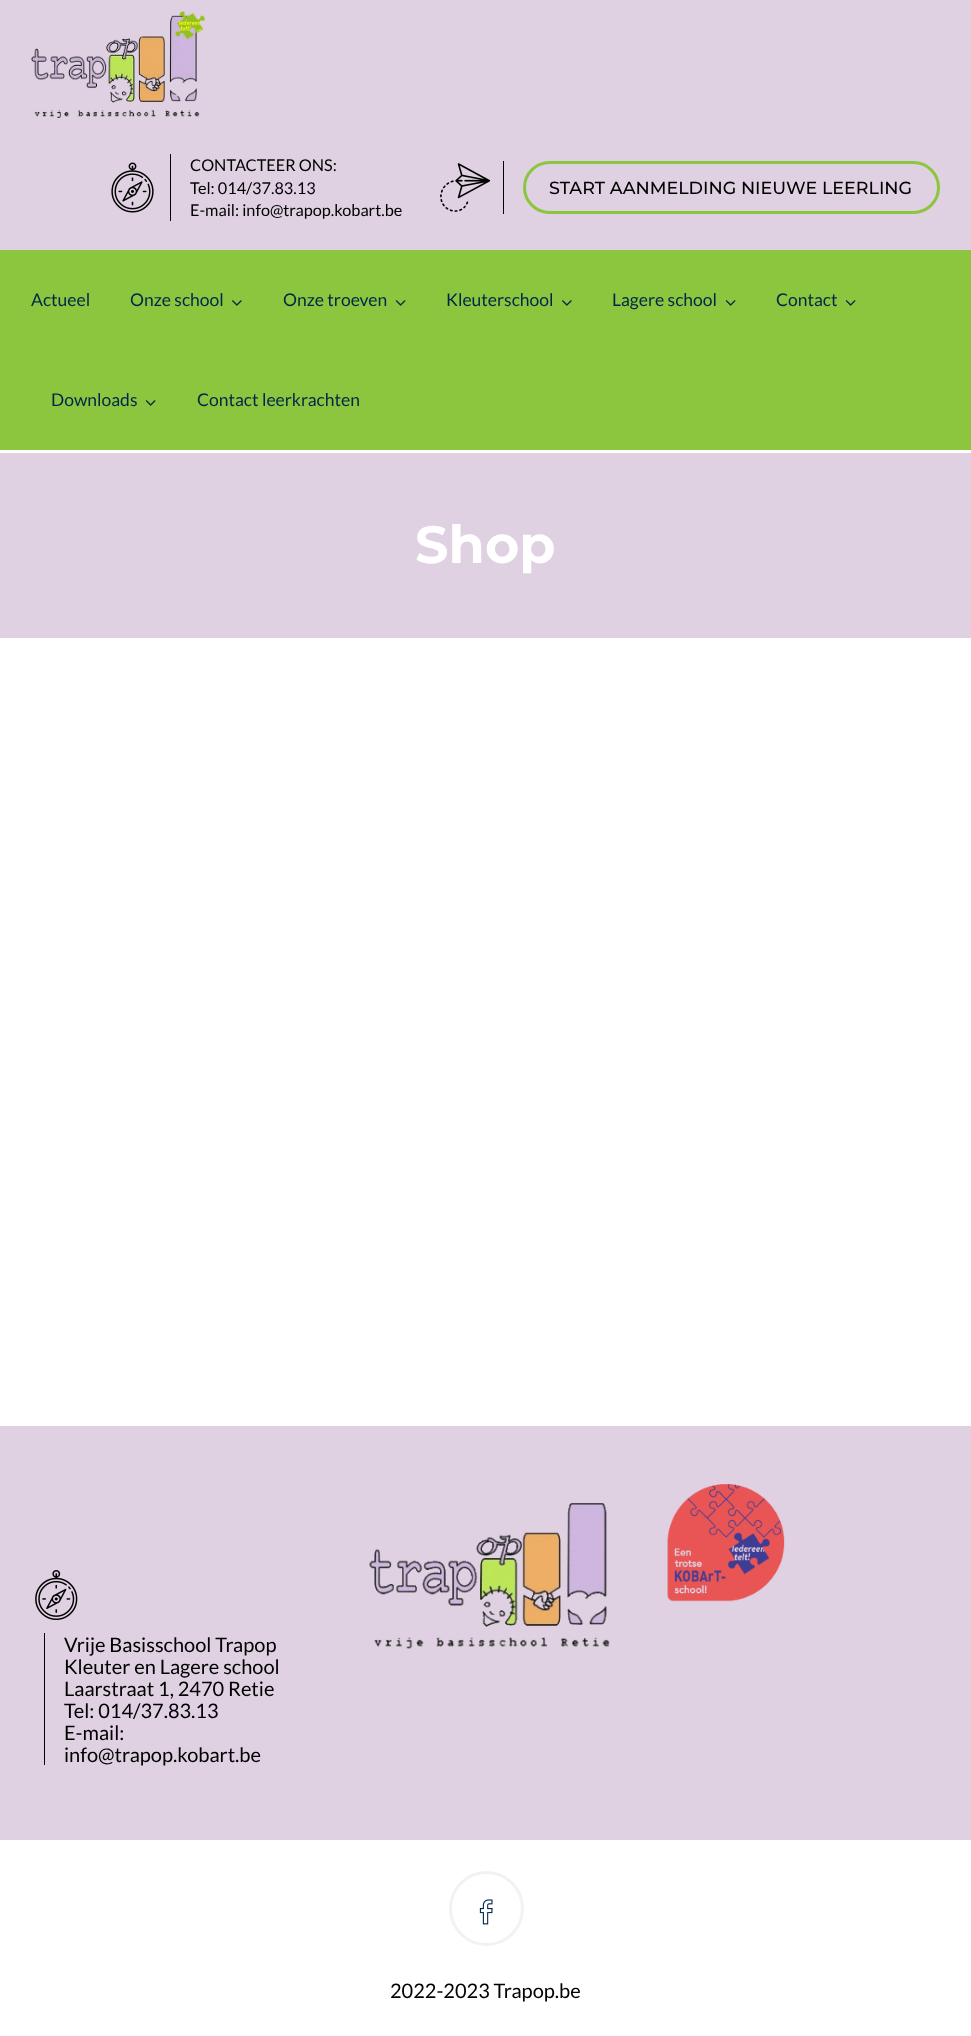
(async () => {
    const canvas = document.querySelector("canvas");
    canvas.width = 971;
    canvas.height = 2036;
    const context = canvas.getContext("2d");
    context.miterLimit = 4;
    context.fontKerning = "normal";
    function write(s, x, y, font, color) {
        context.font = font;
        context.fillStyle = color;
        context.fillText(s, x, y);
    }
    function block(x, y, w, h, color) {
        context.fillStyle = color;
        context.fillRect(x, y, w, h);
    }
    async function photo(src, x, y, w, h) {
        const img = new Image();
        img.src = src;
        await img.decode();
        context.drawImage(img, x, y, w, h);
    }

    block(0, 0, 971, 2036, "rgb(255, 255, 255)");
    block(0, 250, 971, 200, "rgb(140, 198, 62)");
    block(0, 0, 971, 250, "rgb(223, 208, 226)");
    await photo("media/1.png", 31, 11, 175, 107);
    await photo("media/2.png", 111, 162, 43, 51);
    block(170, 154, 1, 67, "rgb(0, 0, 0)");
    write("CONTACTEER ONS:", 190, 171, "16.25px Lato", "rgb(0, 0, 0)");
    write("Tel: 014/37.83.13", 190, 194, "16.25px Lato", "rgb(0, 0, 0)");
    write("E-mail: info@trapop.kobart.be", 190, 216, "16.25px Lato", "rgb(0, 0, 0)");
    await photo("media/3.png", 440, 163, 51, 49);
    block(503, 161, 1, 53, "rgb(0, 0, 0)");
    context.beginPath();
    context.roundRect(524.5, 162.5, 414, 50, 25);
    context.strokeStyle = "rgb(140, 198, 62)";
    context.lineWidth = 3;
    context.stroke();
    write("START AANMELDING NIEUWE LEERLING", 549, 194, "500 17.5px Montserrat", "rgb(0, 0, 0)");
    write("Actueel", 31, 306, "17.5px Lato", "rgb(0, 39, 73)");
    write("Onze school", 130, 306, "17.5px Lato", "rgb(0, 39, 73)");
    await photo("media/4.png", 232, 300, 10, 6);
    write("Onze troeven", 283, 306, "17.5px Lato", "rgb(0, 39, 73)");
    await photo("media/5.png", 395, 300, 11, 6);
    write("Kleuterschool", 446, 306, "17.5px Lato", "rgb(0, 39, 73)");
    await photo("media/4.png", 562, 300, 10, 6);
    write("Lagere school", 612, 306, "17.5px Lato", "rgb(0, 39, 73)");
    await photo("media/5.png", 725, 300, 11, 6);
    write("Contact", 776, 306, "17.5px Lato", "rgb(0, 39, 73)");
    await photo("media/5.png", 845, 300, 11, 6);
    write("Downloads", 51, 406, "17.5px Lato", "rgb(0, 39, 73)");
    await photo("media/5.png", 145, 400, 11, 6);
    write("Contact leerkrachten", 197, 406, "17.5px Lato", "rgb(0, 39, 73)");
    block(0, 453, 971, 185, "rgb(223, 208, 226)");
    write("Shop", 415, 563, "bold 52.5px Montserrat", "rgb(255, 255, 255)");
    block(0, 1426, 971, 414, "rgb(223, 208, 226)");
    await photo("media/6.png", 369, 1503, 241, 146);
    await photo("media/7.png", 667, 1484, 118, 118);
    await photo("media/8.png", 35, 1570, 43, 50);
    block(44, 1633, 1, 132, "rgb(0, 0, 0)");
    write("Vrije Basisschool Trapop", 64, 1652, "20px Lato", "rgb(0, 0, 0)");
    write("Kleuter en Lagere school", 64, 1674, "20px Lato", "rgb(0, 0, 0)");
    write("Laarstraat 1, 2470 Retie", 64, 1696, "20px Lato", "rgb(0, 0, 0)");
    write("Tel: 014/37.83.13", 64, 1718, "20px Lato", "rgb(0, 0, 0)");
    write("E-mail:", 64, 1740, "20px Lato", "rgb(0, 0, 0)");
    write("info@trapop.kobart.be", 64, 1762, "20px Lato", "rgb(0, 0, 0)");
    context.beginPath();
    context.arc(486.5, 1908.5, 36, 0, Math.PI * 2);
    context.strokeStyle = "rgb(242, 242, 242)";
    context.stroke();
    await photo("media/9.png", 479, 1899, 14, 26);
    write("2022-2023 Trapop.be", 390, 1998, "20px Lato", "rgb(0, 0, 0)");
})();
